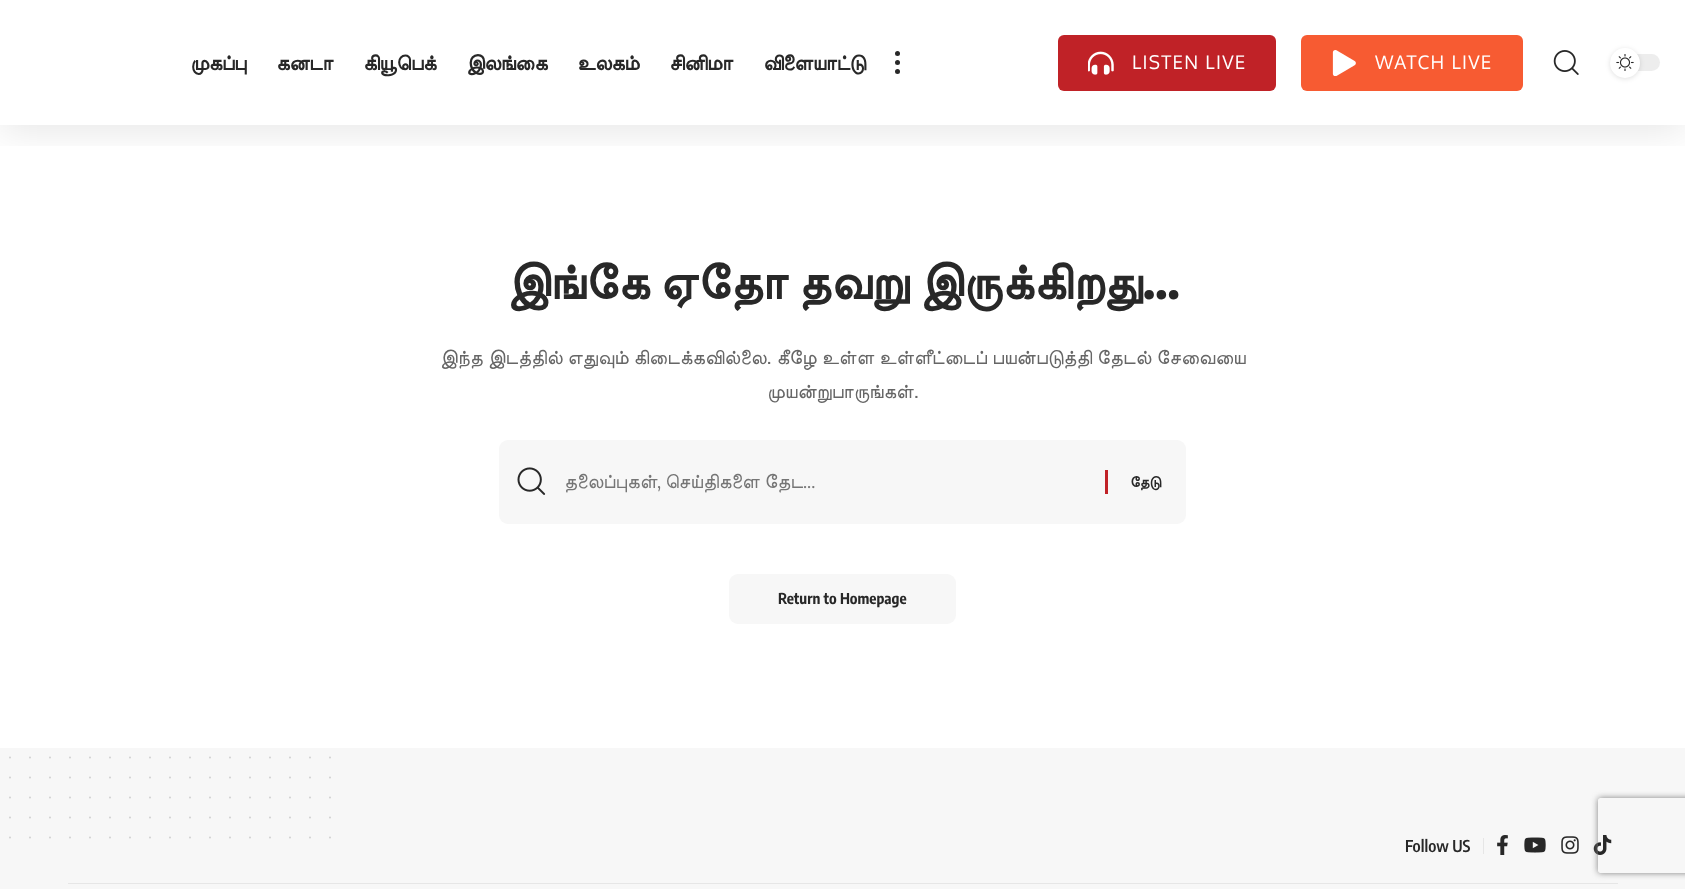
(async () => {
    const canvas = document.querySelector("canvas");
    canvas.width = 1685;
    canvas.height = 889;
    const context = canvas.getContext("2d");
    context.miterLimit = 4;
    context.fontKerning = "normal";
    function write(s, x, y, font, color) {
        context.font = font;
        context.fillStyle = color;
        context.fillText(s, x, y);
    }
    function block(x, y, w, h, color) {
        context.fillStyle = color;
        context.fillRect(x, y, w, h);
    }
    function card(x, y, w, h, r, color) {
        context.fillStyle = color;
        context.beginPath();
        context.roundRect(x, y, w, h, r);
        context.fill();
    }
    async function photo(src, x, y, w, h) {
        const img = new Image();
        img.src = src;
        await img.decode();
        context.drawImage(img, x, y, w, h);
    }

    block(0, 0, 1685, 889, "rgb(255, 255, 255)");
    context.save();
    context.beginPath();
    context.rect(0, 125, 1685, 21);
    context.clip();
    context.fillStyle = "rgba(0, 0, 0, 0.1)";
    context.filter = "blur(19px)";
    context.beginPath();
    context.rect(0, 5, 1685, 125);
    context.fill();
    context.filter = "none";
    context.restore();
    context.letterSpacing = "-0.5px";
    write("முகப்பு", 190, 70, "bold 21.25px FreeSans", "rgb(40, 40, 40)");
    write("கனடா", 276, 70, "bold 21.25px FreeSans", "rgb(40, 40, 40)");
    write("கியூபெக்", 363, 70, "bold 21.25px FreeSans", "rgb(40, 40, 40)");
    write("இலங்கை", 466, 70, "bold 21.25px FreeSans", "rgb(40, 40, 40)");
    write("உலகம்", 577, 70, "bold 21.25px FreeSans", "rgb(40, 40, 40)");
    write("சினிமா", 669, 70, "bold 21.25px FreeSans", "rgb(40, 40, 40)");
    write("விளையாட்டு", 763, 70, "bold 21.25px FreeSans", "rgb(40, 40, 40)");
    context.beginPath();
    context.arc(897.5, 53.5, 2.5, 0, Math.PI * 2);
    context.fill();
    context.beginPath();
    context.arc(897.5, 62.5, 2.5, 0, Math.PI * 2);
    context.fill();
    context.beginPath();
    context.arc(897.5, 71.5, 2.5, 0, Math.PI * 2);
    context.fill();
    card(1058, 35, 218, 56, 6, "rgb(192, 34, 39)");
    await photo("media/1.png", 1088, 51, 26, 24);
    context.letterSpacing = "1.25px";
    write("LISTEN LIVE", 1132, 69, "18.75px Oxygen", "rgb(255, 255, 255)");
    card(1301, 35, 222, 56, 6, "rgb(247, 91, 50)");
    await photo("media/2.png", 1332, 50, 24, 26);
    write("WATCH LIVE", 1375, 69, "18.75px Oxygen", "rgb(255, 255, 255)");
    await photo("media/3.png", 1553, 50, 26, 25);
    card(1610, 54, 50, 17, 8.5, "rgb(237, 237, 237)");
    context.fillStyle = "rgba(0, 0, 0, 0.12)";
    context.filter = "blur(2.5px)";
    context.beginPath();
    context.roundRect(1610, 49, 30, 30, 15);
    context.fill();
    context.filter = "none";
    context.fillStyle = "rgb(255, 255, 255)";
    context.beginPath();
    context.arc(1625, 63, 15, 0, Math.PI * 2);
    context.fill();
    await photo("media/4.png", 1616, 54, 18, 17);
    context.letterSpacing = "0px";
    context.wordSpacing = "-2px";
    write("இங்கே ஏதோ தவறு இருக்கிறது", 506, 299, "bold 50px FreeSans", "rgb(40, 40, 40)");
    context.wordSpacing = "0px";
    write("...", 1143, 299, "bold 50px Encode Sans Condensed", "rgb(40, 40, 40)");
    write("இந்த இடத்தில் எதுவும் கிடைக்கவில்லை. கீழே உள்ள உள்ளீட்டைப் பயன்படுத்தி தேடல் சேவையை", 440, 364, "20px FreeSans", "rgb(102, 102, 102)");
    write("முயன்றுபாருங்கள்.", 767, 398, "20px FreeSans", "rgb(102, 102, 102)");
    card(499, 440, 687, 84, 9, "rgb(247, 247, 247)");
    await photo("media/5.png", 517, 467, 29, 28);
    write("தலைப்புகள்", 564, 488, "20px FreeSans", "rgb(117, 117, 117)");
    write(",", 657, 488, "20px Encode Sans Condensed", "rgb(117, 117, 117)");
    write("செய்திகளை தேட", 665, 488, "20px FreeSans", "rgb(117, 117, 117)");
    write("...", 803, 488, "20px Encode Sans Condensed", "rgb(117, 117, 117)");
    block(1105, 470, 3, 24, "rgb(192, 34, 39)");
    write("தேடு", 1130, 487, "bold 15px FreeSans", "rgb(40, 40, 40)");
    card(729, 574, 227, 50, 9, "rgb(247, 247, 247)");
    write("Return to Homepage", 778, 604, "bold 15px Encode Sans Condensed", "rgb(40, 40, 40)");
    block(0, 748, 1685, 141, "rgb(247, 247, 247)");
    context.beginPath();
    context.moveTo(10, 757.5);
    context.lineTo(330.2, 757.5);
    context.strokeStyle = "rgb(206, 206, 206)";
    context.lineWidth = 1.9;
    context.lineCap = "round";
    context.setLineDash([0, 20]);
    context.stroke();
    context.beginPath();
    context.moveTo(10, 777.5);
    context.lineTo(330.2, 777.5);
    context.stroke();
    context.beginPath();
    context.moveTo(10, 797.5);
    context.lineTo(330.2, 797.5);
    context.stroke();
    context.beginPath();
    context.moveTo(10, 817.5);
    context.lineTo(330.2, 817.5);
    context.stroke();
    context.beginPath();
    context.moveTo(10, 837.5);
    context.lineTo(330.2, 837.5);
    context.stroke();
    block(1483, 838, 1, 16, "rgb(230, 230, 230)");
    write("Follow US", 1405, 852, "600 16.25px Encode Sans Condensed", "rgb(40, 40, 40)");
    await photo("media/6.png", 1497, 835, 11, 20);
    await photo("media/7.png", 1524, 837, 22, 16);
    await photo("media/8.png", 1561, 836, 18, 18);
    await photo("media/9.png", 1593, 835, 19, 20);
    block(68, 883, 1550, 1, "rgb(230, 230, 230)");
    context.save();
    context.beginPath();
    context.moveTo(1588, 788);
    context.lineTo(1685, 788);
    context.lineTo(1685, 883);
    context.lineTo(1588, 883);
    context.closePath();
    context.moveTo(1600.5, 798);
    context.lineTo(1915.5, 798);
    context.bezierCurveTo(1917, 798, 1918, 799, 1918, 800.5);
    context.lineTo(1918, 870.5);
    context.bezierCurveTo(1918, 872, 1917, 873, 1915.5, 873);
    context.lineTo(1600.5, 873);
    context.bezierCurveTo(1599, 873, 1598, 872, 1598, 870.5);
    context.lineTo(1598, 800.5);
    context.bezierCurveTo(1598, 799, 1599, 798, 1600.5, 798);
    context.closePath();
    context.clip("evenodd");
    context.fillStyle = "rgb(128, 128, 128)";
    context.filter = "blur(3px)";
    context.beginPath();
    context.roundRect(1598, 798, 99, 75, 2.5);
    context.fill();
    context.filter = "none";
    context.restore();
})();
